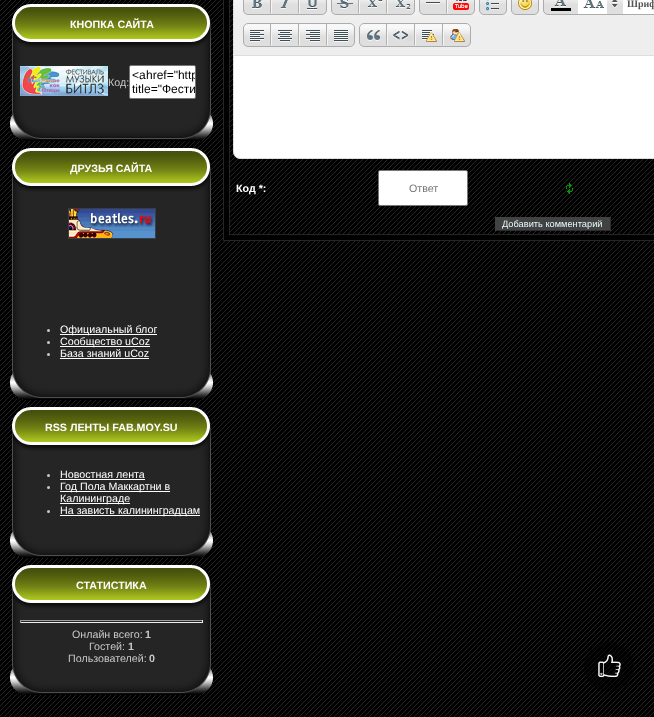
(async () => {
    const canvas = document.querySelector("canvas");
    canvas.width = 654;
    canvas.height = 717;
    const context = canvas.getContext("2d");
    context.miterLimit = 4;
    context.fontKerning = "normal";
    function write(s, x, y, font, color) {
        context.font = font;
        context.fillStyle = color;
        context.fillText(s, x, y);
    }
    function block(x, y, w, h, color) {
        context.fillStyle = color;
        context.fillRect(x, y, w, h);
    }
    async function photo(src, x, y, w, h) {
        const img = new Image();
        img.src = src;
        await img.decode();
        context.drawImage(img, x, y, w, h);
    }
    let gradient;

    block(0, 0, 654, 717, "rgb(255, 255, 255)");
    await photo("media/1.png", 0, 0, 654, 717);
    await photo("media/2.png", 12, 4, 199, 45);
    write("КНОПКА САЙТА", 70, 28, "bold 10.7px Liberation Sans", "rgb(255, 255, 255)");
    await photo("media/3.png", 12, 49, 199, 61);
    await photo("media/4.png", 20, 66, 88, 30);
    write("Код:", 108, 86, "10.7px Liberation Sans", "rgb(200, 200, 200)");
    context.fillStyle = "rgb(255, 255, 255)";
    context.beginPath();
    context.roundRect(129.5, 65.5, 66, 33, 1.5);
    context.fill();
    context.strokeStyle = "rgb(118, 118, 118)";
    context.stroke();
    write("<a", 132, 79, "12px Liberation Sans", "rgb(0, 0, 0)");
    context.save();
    context.beginPath();
    context.rect(130, 66, 65, 32);
    context.clip();
    write("href=\"http", 146, 79, "12px Liberation Sans", "rgb(0, 0, 0)");
    write("title=\"Фести", 132, 93, "12px Liberation Sans", "rgb(0, 0, 0)");
    context.restore();
    await photo("media/5.png", 10, 110, 203, 31);
    await photo("media/6.png", 12, 148, 199, 45);
    write("ДРУЗЬЯ САЙТА", 70, 172, "bold 10.7px Liberation Sans", "rgb(255, 255, 255)");
    await photo("media/7.png", 12, 193, 199, 176);
    await photo("media/8.png", 68, 208, 88, 31);
    context.fillStyle = "rgb(200, 200, 200)";
    context.beginPath();
    context.arc(48.5, 330.5, 1.5, 0, Math.PI * 2);
    context.fill();
    block(60, 334, 97, 1, "rgb(255, 255, 255)");
    write("Официальный блог", 60, 333, "10.7px Liberation Sans", "rgb(255, 255, 255)");
    context.fillStyle = "rgb(200, 200, 200)";
    context.beginPath();
    context.arc(48.5, 342.5, 1.5, 0, Math.PI * 2);
    context.fill();
    block(60, 346, 90, 1, "rgb(255, 255, 255)");
    write("Сообщество uCoz", 60, 345, "10.7px Liberation Sans", "rgb(255, 255, 255)");
    context.fillStyle = "rgb(200, 200, 200)";
    context.beginPath();
    context.arc(48.5, 354.5, 1.5, 0, Math.PI * 2);
    context.fill();
    write("База знаний uCoz", 60, 357, "10.7px Liberation Sans", "rgb(255, 255, 255)");
    block(60, 358, 89, 1, "rgb(255, 255, 255)");
    await photo("media/9.png", 10, 369, 203, 31);
    await photo("media/10.png", 12, 407, 199, 45);
    write("RSS ЛЕНТЫ FAB.MOY.SU", 45, 431, "bold 10.7px Liberation Sans", "rgb(255, 255, 255)");
    await photo("media/11.png", 12, 452, 199, 75);
    context.fillStyle = "rgb(200, 200, 200)";
    context.beginPath();
    context.arc(48.5, 475.5, 1.5, 0, Math.PI * 2);
    context.fill();
    write("Новостная лента", 60, 478, "10.7px Liberation Sans", "rgb(255, 255, 255)");
    block(60, 479, 85, 1, "rgb(255, 255, 255)");
    context.fillStyle = "rgb(200, 200, 200)";
    context.beginPath();
    context.arc(48.5, 487.5, 1.5, 0, Math.PI * 2);
    context.fill();
    block(60, 491, 110, 1, "rgb(255, 255, 255)");
    write("Год Пола Маккартни в", 60, 490, "10.7px Liberation Sans", "rgb(255, 255, 255)");
    block(60, 503, 70, 1, "rgb(255, 255, 255)");
    write("Калининграде", 60, 502, "10.7px Liberation Sans", "rgb(255, 255, 255)");
    context.fillStyle = "rgb(200, 200, 200)";
    context.beginPath();
    context.arc(48.5, 511.5, 1.5, 0, Math.PI * 2);
    context.fill();
    block(60, 515, 140, 1, "rgb(255, 255, 255)");
    write("На зависть калининградцам", 60, 514, "10.7px Liberation Sans", "rgb(255, 255, 255)");
    await photo("media/12.png", 10, 527, 203, 31);
    await photo("media/13.png", 12, 565, 199, 45);
    write("СТАТИСТИКА", 76, 589, "bold 10.7px Liberation Sans", "rgb(255, 255, 255)");
    await photo("media/14.png", 12, 610, 199, 54);
    block(20, 620, 183, 1, "rgb(159, 159, 159)");
    block(202, 620, 1, 3, "rgb(238, 238, 238)");
    block(20, 622, 183, 1, "rgb(238, 238, 238)");
    block(20, 620, 1, 3, "rgb(159, 159, 159)");
    write("Онлайн всего:", 72, 638, "10.7px Liberation Sans", "rgb(200, 200, 200)");
    write("1", 145, 638, "bold 10.7px Liberation Sans", "rgb(200, 200, 200)");
    write("Гостей:", 89, 650, "10.7px Liberation Sans", "rgb(200, 200, 200)");
    write("1", 128, 650, "bold 10.7px Liberation Sans", "rgb(200, 200, 200)");
    write("Пользователей:", 68, 662, "10.7px Liberation Sans", "rgb(200, 200, 200)");
    write("0", 149, 662, "bold 10.7px Liberation Sans", "rgb(200, 200, 200)");
    await photo("media/9.png", 10, 664, 203, 31);
    context.strokeStyle = "rgb(37, 37, 37)";
    context.strokeRect(223.5, -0.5, 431, 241);
    block(224, 0, 430, 240, "rgb(0, 0, 0)");
    await photo("media/15.png", 230, 0, 424, 234);
    context.strokeRect(229.5, -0.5, 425, 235);
    context.fillStyle = "rgb(255, 255, 255)";
    context.beginPath();
    context.roundRect(233.5, -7.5, 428, 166, 6.5);
    context.fill();
    context.strokeStyle = "rgb(221, 221, 221)";
    context.stroke();
    gradient = context.createLinearGradient(553, 55, 553, -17);
    gradient.addColorStop(0.5, "rgb(238, 238, 238)");
    gradient.addColorStop(1, "rgb(250, 250, 250)");
    context.fillStyle = gradient;
    context.fillRect(234, 0, 420, 55);
    block(234, 55, 420, 1, "rgb(221, 221, 221)");
    context.save();
    context.beginPath();
    context.roundRect(243, -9, 84, 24, 5);
    context.clip();
    gradient = context.createLinearGradient(244, -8, 244, 14);
    gradient.addColorStop(0.17, "rgb(248, 248, 248)");
    gradient.addColorStop(0.59, "rgb(223, 223, 223)");
    context.fillStyle = gradient;
    context.fillRect(243, 0, 84, 14);
    context.restore();
    context.beginPath();
    context.roundRect(243.5, -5.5, 83, 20, 4.5);
    context.strokeStyle = "rgb(172, 172, 172)";
    context.stroke();
    await photo("media/16.png", 252, 0, 10, 9);
    block(270, 0, 1, 13, "rgb(176, 176, 176)");
    await photo("media/17.png", 280, 0, 8, 9);
    block(298, 0, 1, 13, "rgb(176, 176, 176)");
    block(271, 0, 1, 13, "rgb(246, 246, 246)");
    await photo("media/18.png", 307, 0, 11, 10);
    block(299, 0, 1, 13, "rgb(246, 246, 246)");
    context.save();
    context.beginPath();
    context.roundRect(331, -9, 84, 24, 5);
    context.clip();
    gradient = context.createLinearGradient(332, -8, 332, 14);
    gradient.addColorStop(0.17, "rgb(248, 248, 248)");
    gradient.addColorStop(0.59, "rgb(223, 223, 223)");
    context.fillStyle = gradient;
    context.fillRect(331, 0, 84, 14);
    context.restore();
    context.beginPath();
    context.roundRect(331.5, -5.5, 83, 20, 4.5);
    context.stroke();
    await photo("media/19.png", 337, 0, 16, 9);
    block(358, 0, 1, 13, "rgb(176, 176, 176)");
    await photo("media/20.png", 367, 0, 16, 8);
    block(386, 0, 1, 13, "rgb(176, 176, 176)");
    block(359, 0, 1, 13, "rgb(246, 246, 246)");
    await photo("media/21.png", 395, 0, 16, 10);
    block(387, 0, 1, 13, "rgb(246, 246, 246)");
    context.save();
    context.beginPath();
    context.roundRect(419, -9, 56, 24, 5);
    context.clip();
    gradient = context.createLinearGradient(420, -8, 420, 14);
    gradient.addColorStop(0.17, "rgb(248, 248, 248)");
    gradient.addColorStop(0.59, "rgb(223, 223, 223)");
    context.fillStyle = gradient;
    context.fillRect(419, 0, 56, 14);
    context.restore();
    context.beginPath();
    context.roundRect(419.5, -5.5, 55, 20, 4.5);
    context.stroke();
    await photo("media/22.png", 426, 2, 14, 2);
    block(446, 0, 1, 13, "rgb(176, 176, 176)");
    await photo("media/23.png", 453, 0, 16, 10);
    block(447, 0, 1, 13, "rgb(246, 246, 246)");
    context.save();
    context.beginPath();
    context.roundRect(479, -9, 28, 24, 5);
    context.clip();
    gradient = context.createLinearGradient(480, -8, 480, 14);
    gradient.addColorStop(0.17, "rgb(248, 248, 248)");
    gradient.addColorStop(0.59, "rgb(223, 223, 223)");
    context.fillStyle = gradient;
    context.fillRect(479, 0, 28, 14);
    context.restore();
    context.beginPath();
    context.roundRect(479.5, -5.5, 27, 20, 4.5);
    context.stroke();
    await photo("media/24.png", 486, 0, 13, 11);
    context.save();
    context.beginPath();
    context.roundRect(511, -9, 28, 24, 5);
    context.clip();
    gradient = context.createLinearGradient(512, -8, 512, 14);
    gradient.addColorStop(0.17, "rgb(248, 248, 248)");
    gradient.addColorStop(0.59, "rgb(223, 223, 223)");
    context.fillStyle = gradient;
    context.fillRect(511, 0, 28, 14);
    context.restore();
    context.beginPath();
    context.roundRect(511.5, -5.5, 27, 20, 4.5);
    context.stroke();
    await photo("media/25.png", 518, 0, 14, 10);
    context.save();
    context.beginPath();
    context.roundRect(543, -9, 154, 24, 5);
    context.clip();
    gradient = context.createLinearGradient(544, -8, 544, 14);
    gradient.addColorStop(0.17, "rgb(248, 248, 248)");
    gradient.addColorStop(0.59, "rgb(223, 223, 223)");
    context.fillStyle = gradient;
    context.fillRect(543, 0, 80, 14);
    context.restore();
    context.beginPath();
    context.roundRect(543.5, -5.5, 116, 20, 4.5);
    context.stroke();
    await photo("media/26.png", 554, 0, 12, 7);
    block(551, 8, 20, 3, "rgb(0, 0, 0)");
    block(578, 0, 29, 14, "rgb(255, 255, 255)");
    await photo("media/27.png", 583, 0, 21, 8);
    await photo("media/28.png", 612, 0, 6, 9);
    block(623, 0, 31, 14, "rgb(255, 255, 255)");
    write("Шриф", 627, 7, "bold 10px Liberation Serif", "rgb(85, 85, 85)");
    context.save();
    context.beginPath();
    context.roundRect(243, 23, 112, 24, 5);
    context.clip();
    gradient = context.createLinearGradient(244, 24, 244, 46);
    gradient.addColorStop(0.17, "rgb(248, 248, 248)");
    gradient.addColorStop(0.59, "rgb(223, 223, 223)");
    context.fillStyle = gradient;
    context.fillRect(243, 24, 112, 22);
    context.restore();
    context.beginPath();
    context.roundRect(243.5, 23.5, 111, 23, 4.5);
    context.stroke();
    await photo("media/29.png", 250, 30, 14, 12);
    block(270, 24, 1, 21, "rgb(176, 176, 176)");
    await photo("media/30.png", 278, 30, 14, 12);
    block(298, 24, 1, 21, "rgb(176, 176, 176)");
    block(271, 24, 1, 21, "rgb(246, 246, 246)");
    await photo("media/31.png", 306, 30, 14, 12);
    block(326, 24, 1, 21, "rgb(176, 176, 176)");
    block(299, 24, 1, 21, "rgb(246, 246, 246)");
    await photo("media/32.png", 334, 30, 14, 12);
    block(327, 24, 1, 21, "rgb(246, 246, 246)");
    context.save();
    context.beginPath();
    context.roundRect(359, 23, 112, 24, 5);
    context.clip();
    gradient = context.createLinearGradient(360, 24, 360, 46);
    gradient.addColorStop(0.17, "rgb(248, 248, 248)");
    gradient.addColorStop(0.59, "rgb(223, 223, 223)");
    context.fillStyle = gradient;
    context.fillRect(359, 24, 112, 22);
    context.restore();
    context.beginPath();
    context.roundRect(359.5, 23.5, 111, 23, 4.5);
    context.stroke();
    await photo("media/33.png", 367, 30, 13, 11);
    block(386, 24, 1, 21, "rgb(176, 176, 176)");
    await photo("media/34.png", 393, 30, 21, 11);
    block(414, 24, 1, 21, "rgb(176, 176, 176)");
    block(387, 24, 1, 21, "rgb(246, 246, 246)");
    await photo("media/35.png", 422, 30, 15, 12);
    block(442, 24, 1, 21, "rgb(176, 176, 176)");
    block(415, 24, 1, 21, "rgb(246, 246, 246)");
    await photo("media/36.png", 450, 29, 15, 13);
    block(443, 24, 1, 21, "rgb(246, 246, 246)");
    write("Код *:", 236, 192, "bold 10.7px Liberation Sans", "rgb(255, 255, 255)");
    context.beginPath();
    context.roundRect(378.5, 170.5, 89, 35, 1.5);
    context.fill();
    context.strokeStyle = "rgb(118, 118, 118)";
    context.stroke();
    write("Ответ", 409, 192, "10.7px Liberation Sans", "rgb(117, 117, 117)");
    await photo("media/37.png", 566, 183, 7, 11);
    block(496, 217, 114, 13, "rgb(66, 66, 66)");
    block(610, 217, 1, 14, "rgb(44, 44, 44)");
    block(495, 230, 116, 1, "rgb(44, 44, 44)");
    block(495, 217, 1, 14, "rgb(66, 66, 66)");
    write("Добавить комментарий", 502, 227, "9.25px Liberation Sans", "rgb(228, 250, 253)");
    context.fillStyle = "rgba(0, 0, 0, 0.5)";
    context.beginPath();
    context.arc(609, 667, 25, 0, Math.PI * 2);
    context.fill();
    await photo("media/38.png", 598, 654, 23, 23);
})();
